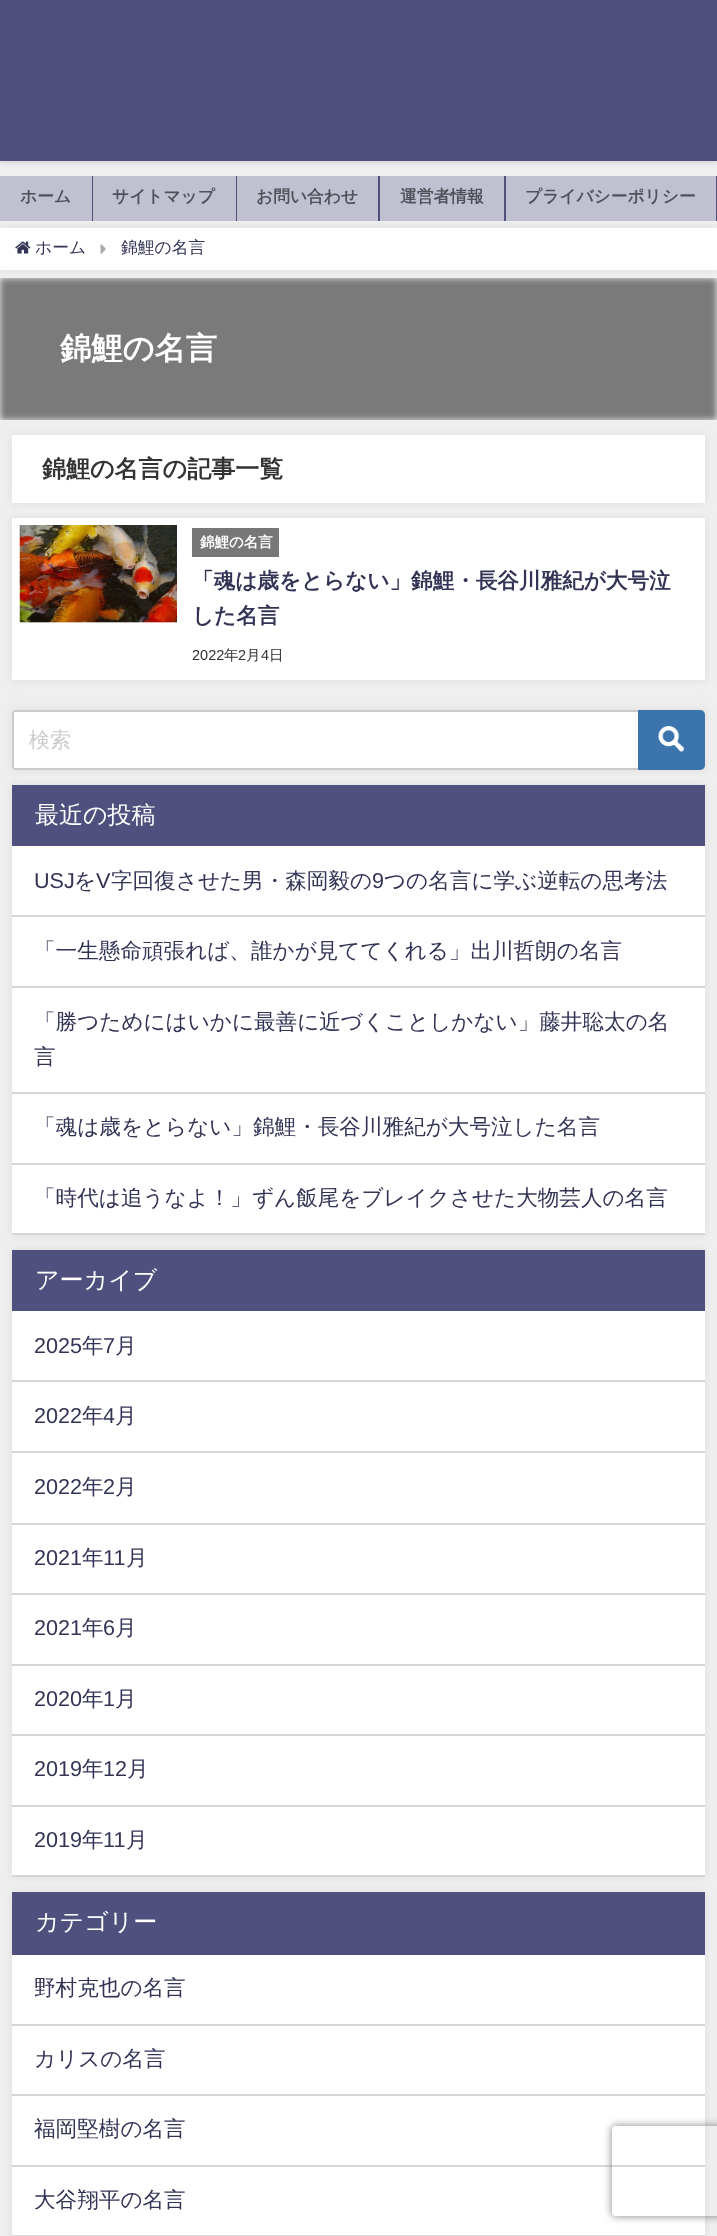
(async () => {
    const canvas = document.querySelector("canvas");
    canvas.width = 717;
    canvas.height = 2236;
    const context = canvas.getContext("2d");
    context.miterLimit = 4;
    context.fontKerning = "normal";
    function write(s, x, y, font, color) {
        context.font = font;
        context.fillStyle = color;
        context.fillText(s, x, y);
    }
    function block(x, y, w, h, color) {
        context.fillStyle = color;
        context.fillRect(x, y, w, h);
    }
    async function photo(src, x, y, w, h) {
        const img = new Image();
        img.src = src;
        await img.decode();
        context.drawImage(img, x, y, w, h);
    }

    block(0, 0, 717, 2236, "rgb(239, 239, 239)");
    context.fillStyle = "rgba(0, 0, 0, 0.2)";
    context.filter = "blur(3px)";
    context.beginPath();
    context.rect(0, -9, 717, 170);
    context.fill();
    context.filter = "none";
    block(0, 0, 717, 161, "rgb(80, 80, 127)");
    context.fillStyle = "rgba(150, 150, 150, 0.2)";
    context.filter = "blur(4px)";
    context.beginPath();
    context.rect(0, 228, 717, 42);
    context.fill();
    context.filter = "none";
    block(92, 176, 625, 45, "rgb(80, 80, 127)");
    block(0, 176, 92, 45, "rgb(192, 192, 209)");
    write("ホーム", 20, 202, "bold 16.75px WenQuanYi Zen Hei", "rgb(80, 80, 89)");
    block(93, 176, 143, 45, "rgb(192, 192, 209)");
    write("サイトマップ", 112, 202, "bold 16.75px WenQuanYi Zen Hei", "rgb(80, 80, 89)");
    block(237, 176, 141, 45, "rgb(192, 192, 209)");
    write("お問い合わせ", 256, 202, "bold 16.75px WenQuanYi Zen Hei", "rgb(80, 80, 89)");
    block(380, 176, 124, 45, "rgb(192, 192, 209)");
    write("運営者情報", 400, 202, "bold 16.75px WenQuanYi Zen Hei", "rgb(80, 80, 89)");
    block(506, 176, 210, 45, "rgb(192, 192, 209)");
    write("プライバシーポリシー", 525, 202, "bold 16.75px WenQuanYi Zen Hei", "rgb(80, 80, 89)");
    context.save();
    context.beginPath();
    context.rect(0, 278, 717, 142);
    context.clip();
    context.fillStyle = "rgb(122, 122, 122)";
    context.filter = "blur(3px)";
    context.beginPath();
    context.rect(0, 278, 717, 142);
    context.fill();
    context.filter = "none";
    context.restore();
    block(0, 228, 717, 42, "rgb(255, 255, 255)");
    await photo("media/1.png", 15, 241, 16, 13);
    write("ホーム", 35, 253, "500 16.75px WenQuanYi Zen Hei", "rgb(51, 51, 85)");
    await photo("media/2.png", 100, 244, 6, 10);
    write("錦鯉の名言", 121, 253, "500 16.75px WenQuanYi Zen Hei", "rgb(51, 51, 85)");
    write("錦鯉の名言", 60, 359, "bold 31.25px WenQuanYi Zen Hei", "rgb(255, 255, 255)");
    context.fillStyle = "rgba(150, 150, 150, 0.2)";
    context.filter = "blur(4px)";
    context.beginPath();
    context.rect(12, 435, 693, 68);
    context.fill();
    context.filter = "none";
    block(12, 435, 693, 68, "rgb(255, 255, 255)");
    write("錦鯉の名言の記事一覧", 42, 477, "bold 24px WenQuanYi Zen Hei", "rgb(51, 51, 51)");
    context.fillStyle = "rgba(150, 150, 150, 0.2)";
    context.filter = "blur(4px)";
    context.beginPath();
    context.rect(12, 518, 693, 162);
    context.fill();
    context.filter = "none";
    block(12, 518, 693, 162, "rgb(255, 255, 255)");
    block(20, 622, 157, 1, "rgb(238, 238, 238)");
    await photo("media/3.png", 19, 525, 158, 98);
    block(192, 528, 87, 29, "rgb(119, 119, 119)");
    write("錦鯉の名言", 200, 547, "bold 14.5px WenQuanYi Zen Hei", "rgb(255, 255, 255)");
    write("「魂は歳をとらない」錦鯉・長谷川雅紀が大号泣", 192, 588, "bold 21.6px WenQuanYi Zen Hei", "rgb(51, 51, 85)");
    write("した名言", 192, 623, "bold 21.6px WenQuanYi Zen Hei", "rgb(51, 51, 85)");
    write("2022", 192, 660, "14.5px Liberation Sans", "rgb(51, 51, 51)");
    write("年", 224, 660, "500 14.5px WenQuanYi Zen Hei", "rgb(51, 51, 51)");
    write("2", 238, 660, "14.5px Liberation Sans", "rgb(51, 51, 51)");
    write("月", 246, 660, "500 14.5px WenQuanYi Zen Hei", "rgb(51, 51, 51)");
    write("4", 261, 660, "14.5px Liberation Sans", "rgb(51, 51, 51)");
    write("日", 269, 660, "500 14.5px WenQuanYi Zen Hei", "rgb(51, 51, 51)");
    context.fillStyle = "rgba(150, 150, 150, 0.2)";
    context.filter = "blur(4px)";
    context.beginPath();
    context.rect(12, 710, 693, 60);
    context.fill();
    context.filter = "none";
    block(12, 710, 693, 60, "rgb(255, 255, 255)");
    context.beginPath();
    context.roundRect(13, 711, 691, 58, 2);
    context.strokeStyle = "rgb(204, 204, 204)";
    context.lineWidth = 2;
    context.stroke();
    write("検索", 29, 747, "500 21px WenQuanYi Zen Hei", "rgb(204, 204, 204)");
    context.fillStyle = "rgb(60, 116, 173)";
    context.beginPath();
    context.roundRect(638, 710, 67, 60, [0, 5, 5, 0]);
    context.fill();
    await photo("media/4.png", 658, 726, 26, 26);
    context.fillStyle = "rgba(150, 150, 150, 0.2)";
    context.filter = "blur(4px)";
    context.beginPath();
    context.rect(12, 785, 693, 450);
    context.fill();
    context.filter = "none";
    block(12, 846, 693, 387, "rgb(255, 255, 255)");
    block(12, 785, 693, 61, "rgb(80, 80, 127)");
    write("最近の投稿", 35, 823, "500 24px WenQuanYi Zen Hei", "rgb(255, 255, 255)");
    block(12, 915, 693, 2, "rgb(214, 214, 214)");
    write("USJ", 34, 888, "21.6px Liberation Sans", "rgb(51, 51, 85)");
    write("を", 74, 888, "500 21.6px WenQuanYi Zen Hei", "rgb(51, 51, 85)");
    write("V", 96, 888, "21.6px Liberation Sans", "rgb(51, 51, 85)");
    write("字回復させた男・森岡毅の", 111, 888, "500 21.6px WenQuanYi Zen Hei", "rgb(51, 51, 85)");
    write("9", 372, 888, "21.6px Liberation Sans", "rgb(51, 51, 85)");
    write("つの名言に学ぶ逆転の思考法", 384, 888, "500 21.6px WenQuanYi Zen Hei", "rgb(51, 51, 85)");
    block(12, 986, 693, 2, "rgb(214, 214, 214)");
    write("「一生懸命頑張れば、誰かが見ててくれる」出川哲朗の名言", 34, 958, "500 21.6px WenQuanYi Zen Hei", "rgb(51, 51, 85)");
    block(12, 1092, 693, 2, "rgb(214, 214, 214)");
    write("「勝つためにはいかに最善に近づくことしかない」藤井聡太の名", 34, 1029, "500 21.6px WenQuanYi Zen Hei", "rgb(51, 51, 85)");
    write("言", 34, 1064, "500 21.6px WenQuanYi Zen Hei", "rgb(51, 51, 85)");
    block(12, 1163, 693, 2, "rgb(214, 214, 214)");
    write("「魂は歳をとらない」錦鯉・長谷川雅紀が大号泣した名言", 34, 1134, "500 21.6px WenQuanYi Zen Hei", "rgb(51, 51, 85)");
    block(12, 1233, 693, 2, "rgb(214, 214, 214)");
    write("「時代は追うなよ！」ずん飯尾をブレイクさせた大物芸人の名言", 34, 1205, "500 21.6px WenQuanYi Zen Hei", "rgb(51, 51, 85)");
    context.fillStyle = "rgba(150, 150, 150, 0.2)";
    context.filter = "blur(4px)";
    context.beginPath();
    context.rect(12, 1250, 693, 627);
    context.fill();
    context.filter = "none";
    block(12, 1311, 693, 564, "rgb(255, 255, 255)");
    block(12, 1250, 693, 61, "rgb(80, 80, 127)");
    write("アーカイブ", 35, 1288, "500 24px WenQuanYi Zen Hei", "rgb(255, 255, 255)");
    block(12, 1380, 693, 2, "rgb(214, 214, 214)");
    write("2025", 34, 1353, "21.6px Liberation Sans", "rgb(51, 51, 85)");
    write("年", 82, 1353, "500 21.6px WenQuanYi Zen Hei", "rgb(51, 51, 85)");
    write("7", 103, 1353, "21.6px Liberation Sans", "rgb(51, 51, 85)");
    write("月", 115, 1353, "500 21.6px WenQuanYi Zen Hei", "rgb(51, 51, 85)");
    block(12, 1451, 693, 2, "rgb(214, 214, 214)");
    write("2022", 34, 1423, "21.6px Liberation Sans", "rgb(51, 51, 85)");
    write("年", 82, 1423, "500 21.6px WenQuanYi Zen Hei", "rgb(51, 51, 85)");
    write("4", 103, 1423, "21.6px Liberation Sans", "rgb(51, 51, 85)");
    write("月", 115, 1423, "500 21.6px WenQuanYi Zen Hei", "rgb(51, 51, 85)");
    block(12, 1523, 693, 2, "rgb(214, 214, 214)");
    write("2022", 34, 1494, "21.6px Liberation Sans", "rgb(51, 51, 85)");
    write("年", 82, 1494, "500 21.6px WenQuanYi Zen Hei", "rgb(51, 51, 85)");
    write("2", 103, 1494, "21.6px Liberation Sans", "rgb(51, 51, 85)");
    write("月", 115, 1494, "500 21.6px WenQuanYi Zen Hei", "rgb(51, 51, 85)");
    block(12, 1593, 693, 2, "rgb(214, 214, 214)");
    write("2021", 34, 1565, "21.6px Liberation Sans", "rgb(51, 51, 85)");
    write("年", 82, 1565, "500 21.6px WenQuanYi Zen Hei", "rgb(51, 51, 85)");
    write("11", 103, 1565, "21.6px Liberation Sans", "rgb(51, 51, 85)");
    write("月", 126, 1565, "500 21.6px WenQuanYi Zen Hei", "rgb(51, 51, 85)");
    block(12, 1664, 693, 2, "rgb(214, 214, 214)");
    write("2021", 34, 1635, "21.6px Liberation Sans", "rgb(51, 51, 85)");
    write("年", 82, 1635, "500 21.6px WenQuanYi Zen Hei", "rgb(51, 51, 85)");
    write("6", 103, 1635, "21.6px Liberation Sans", "rgb(51, 51, 85)");
    write("月", 115, 1635, "500 21.6px WenQuanYi Zen Hei", "rgb(51, 51, 85)");
    block(12, 1734, 693, 2, "rgb(214, 214, 214)");
    write("2020", 34, 1706, "21.6px Liberation Sans", "rgb(51, 51, 85)");
    write("年", 82, 1706, "500 21.6px WenQuanYi Zen Hei", "rgb(51, 51, 85)");
    write("1", 103, 1706, "21.6px Liberation Sans", "rgb(51, 51, 85)");
    write("月", 115, 1706, "500 21.6px WenQuanYi Zen Hei", "rgb(51, 51, 85)");
    block(12, 1805, 693, 2, "rgb(214, 214, 214)");
    write("2019", 34, 1776, "21.6px Liberation Sans", "rgb(51, 51, 85)");
    write("年", 82, 1776, "500 21.6px WenQuanYi Zen Hei", "rgb(51, 51, 85)");
    write("12", 103, 1776, "21.6px Liberation Sans", "rgb(51, 51, 85)");
    write("月", 127, 1776, "500 21.6px WenQuanYi Zen Hei", "rgb(51, 51, 85)");
    block(12, 1875, 693, 2, "rgb(214, 214, 214)");
    write("2019", 34, 1847, "21.6px Liberation Sans", "rgb(51, 51, 85)");
    write("年", 82, 1847, "500 21.6px WenQuanYi Zen Hei", "rgb(51, 51, 85)");
    write("11", 103, 1847, "21.6px Liberation Sans", "rgb(51, 51, 85)");
    write("月", 126, 1847, "500 21.6px WenQuanYi Zen Hei", "rgb(51, 51, 85)");
    context.fillStyle = "rgba(150, 150, 150, 0.2)";
    context.filter = "blur(4px)";
    context.beginPath();
    context.rect(12, 1892, 693, 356);
    context.fill();
    context.filter = "none";
    block(12, 1955, 693, 280, "rgb(255, 255, 255)");
    block(12, 1892, 693, 63, "rgb(80, 80, 127)");
    write("カテゴリー", 35, 1930, "500 24px WenQuanYi Zen Hei", "rgb(255, 255, 255)");
    block(12, 2024, 693, 2, "rgb(214, 214, 214)");
    write("野村克也の名言", 34, 1995, "500 21.6px WenQuanYi Zen Hei", "rgb(51, 51, 85)");
    block(12, 2094, 693, 2, "rgb(214, 214, 214)");
    write("カリスの名言", 34, 2066, "500 21.6px WenQuanYi Zen Hei", "rgb(51, 51, 85)");
    block(12, 2165, 693, 2, "rgb(214, 214, 214)");
    write("福岡堅樹の名言", 34, 2136, "500 21.6px WenQuanYi Zen Hei", "rgb(51, 51, 85)");
    block(12, 2235, 693, 1, "rgb(214, 214, 214)");
    write("大谷翔平の名言", 34, 2207, "500 21.6px WenQuanYi Zen Hei", "rgb(51, 51, 85)");
    context.save();
    context.beginPath();
    context.moveTo(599, 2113);
    context.lineTo(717, 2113);
    context.lineTo(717, 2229);
    context.lineTo(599, 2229);
    context.closePath();
    context.moveTo(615, 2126);
    context.lineTo(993, 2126);
    context.bezierCurveTo(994.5, 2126, 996, 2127.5, 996, 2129);
    context.lineTo(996, 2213);
    context.bezierCurveTo(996, 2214.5, 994.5, 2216, 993, 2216);
    context.lineTo(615, 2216);
    context.bezierCurveTo(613.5, 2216, 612, 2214.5, 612, 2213);
    context.lineTo(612, 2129);
    context.bezierCurveTo(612, 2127.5, 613.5, 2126, 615, 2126);
    context.closePath();
    context.clip("evenodd");
    context.fillStyle = "rgb(128, 128, 128)";
    context.filter = "blur(4px)";
    context.beginPath();
    context.roundRect(612, 2126, 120, 90, 3);
    context.fill();
    context.filter = "none";
    context.restore();
})();
